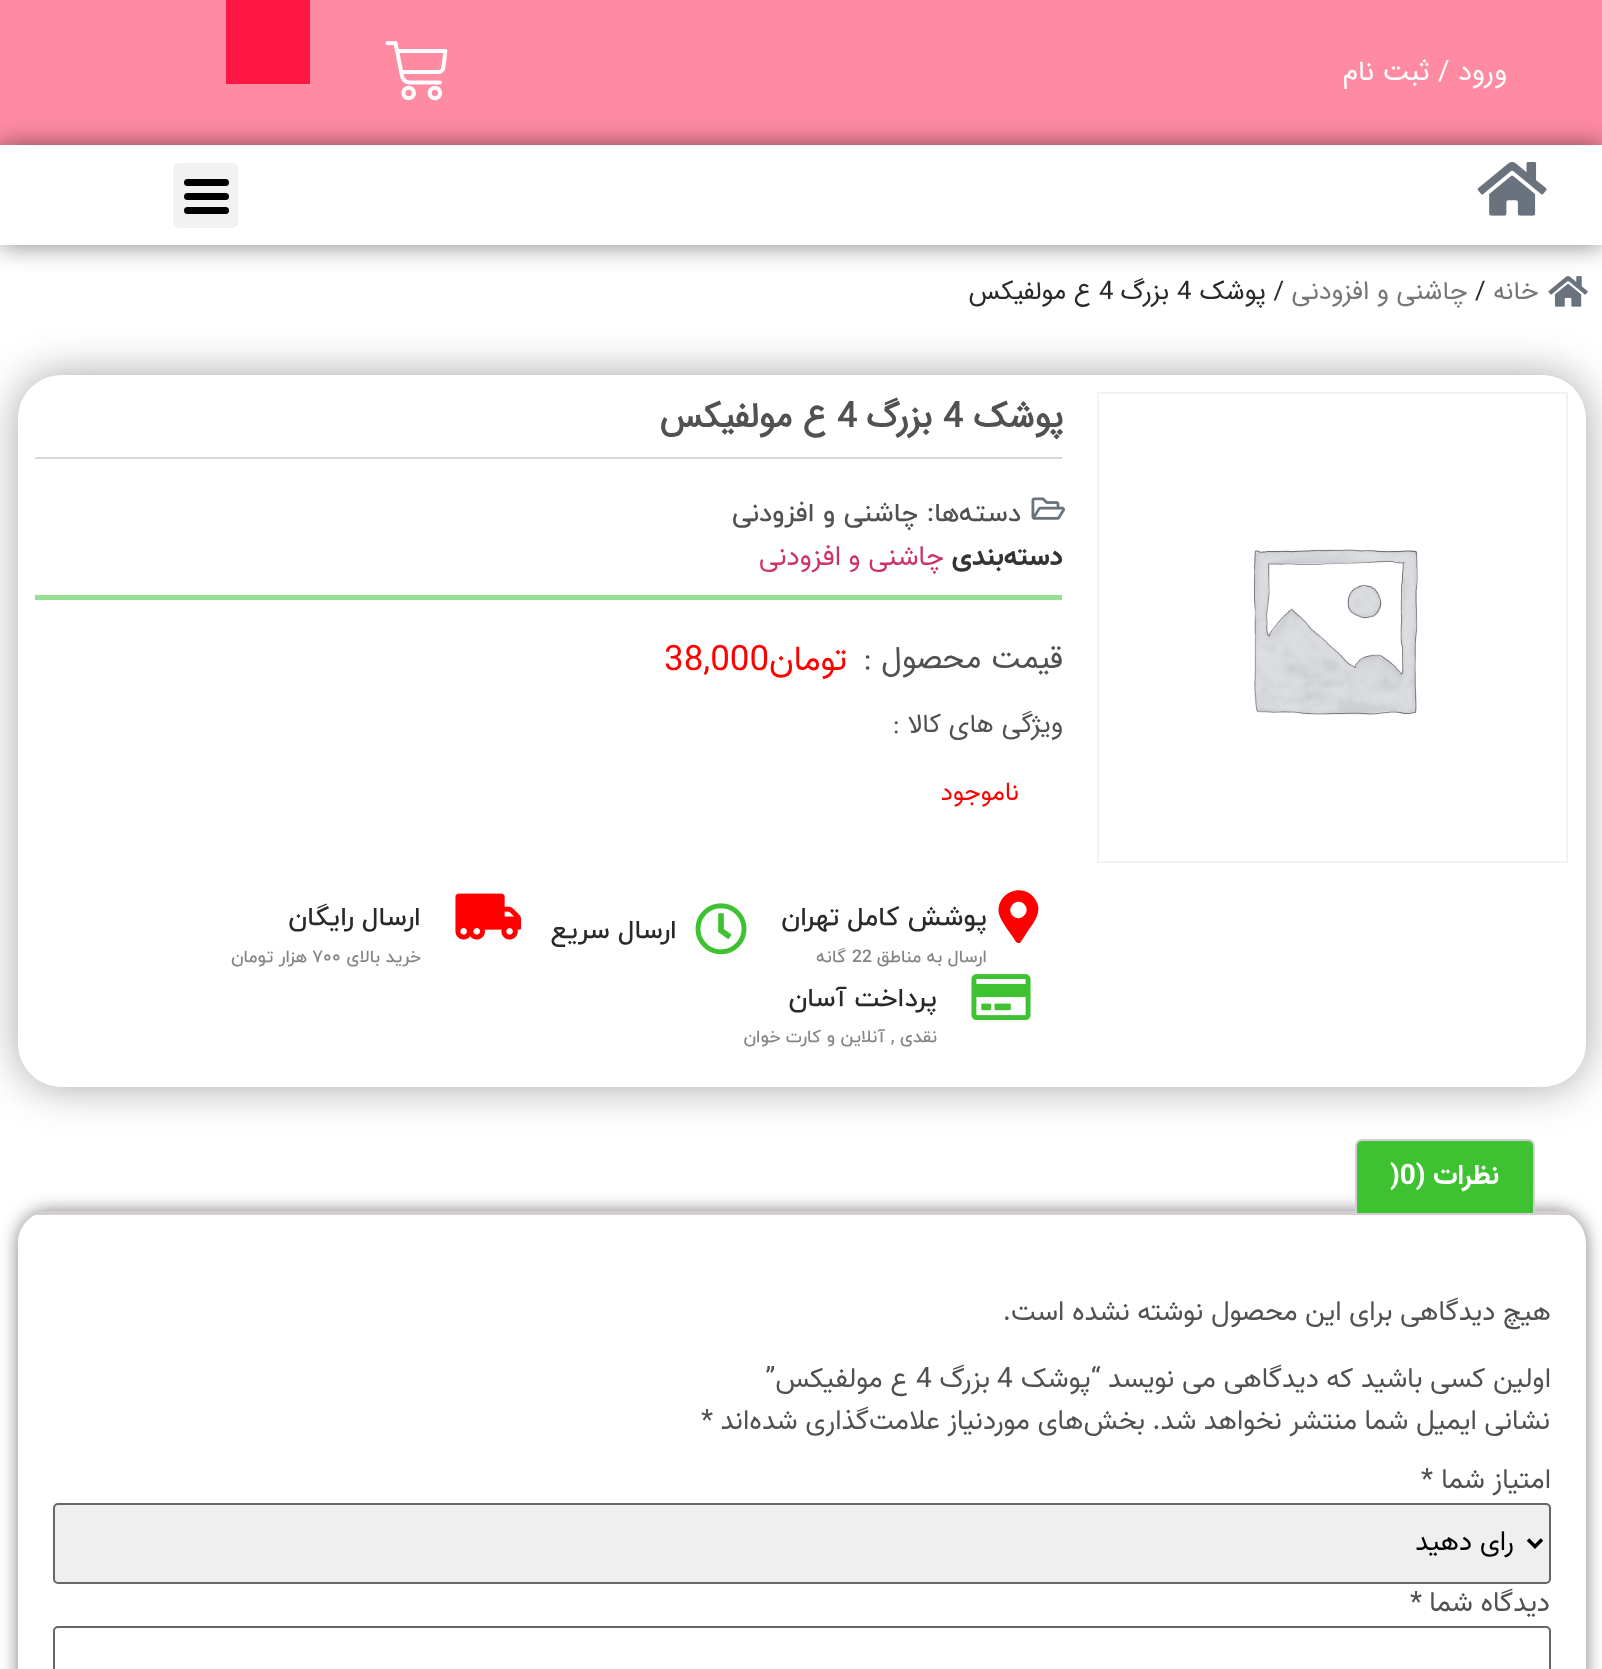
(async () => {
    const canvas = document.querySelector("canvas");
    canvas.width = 1602;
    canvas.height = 1669;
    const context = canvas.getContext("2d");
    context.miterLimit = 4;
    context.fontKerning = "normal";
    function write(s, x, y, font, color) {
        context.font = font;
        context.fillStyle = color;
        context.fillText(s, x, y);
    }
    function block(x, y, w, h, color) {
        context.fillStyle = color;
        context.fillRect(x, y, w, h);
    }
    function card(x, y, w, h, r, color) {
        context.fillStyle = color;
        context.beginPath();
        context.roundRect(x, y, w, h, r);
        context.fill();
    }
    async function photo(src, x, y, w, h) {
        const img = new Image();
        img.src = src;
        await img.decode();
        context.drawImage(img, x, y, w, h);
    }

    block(0, 0, 1602, 1669, "rgb(255, 255, 255)");
    block(0, 0, 1602, 145, "rgb(255, 139, 162)");
    context.direction = "rtl";
    write("ورود / ثبت نام", 1507, 80, "28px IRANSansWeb", "rgb(255, 255, 255)");
    await photo("media/1.png", 385, 41, 63, 60);
    block(226, 0, 84, 84, "rgb(255, 23, 68)");
    context.fillStyle = "rgba(0, 0, 0, 0.5)";
    context.filter = "blur(13px)";
    context.beginPath();
    context.rect(0, 145, 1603, 100);
    context.fill();
    context.filter = "none";
    block(0, 145, 1602, 100, "rgb(255, 255, 255)");
    await photo("media/2.png", 1477, 162, 70, 54);
    card(173, 163, 65, 65, 5, "rgb(242, 242, 242)");
    card(184, 193, 45, 7, 3.5, "rgb(0, 0, 0)");
    card(184, 179, 45, 7, 3.5, "rgb(0, 0, 0)");
    card(184, 207, 45, 7, 3.5, "rgb(0, 0, 0)");
    await photo("media/3.png", 1548, 276, 40, 31);
    write("خانه", 1538, 299, "25.75px IRANSansWeb", "rgb(118, 118, 118)");
    context.direction = "ltr";
    write("/", 1475, 299, "25.75px IRANSansWeb", "rgb(41, 41, 41)");
    context.direction = "rtl";
    write("چاشنی و افزودنی", 1467, 299, "25.75px IRANSansWeb", "rgb(118, 118, 118)");
    write("/ پوشک", 1284, 299, "25.75px IRANSansWeb", "rgb(41, 41, 41)");
    context.direction = "ltr";
    write("4", 1177, 299, "25.75px IRANSansWeb", "rgb(41, 41, 41)");
    context.direction = "rtl";
    write("بزرگ", 1169, 299, "25.75px IRANSansWeb", "rgb(41, 41, 41)");
    context.direction = "ltr";
    write("4", 1099, 299, "25.75px IRANSansWeb", "rgb(41, 41, 41)");
    context.direction = "rtl";
    write("ع مولفیکس", 1091, 299, "25.75px IRANSansWeb", "rgb(41, 41, 41)");
    context.save();
    context.beginPath();
    context.moveTo(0, 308);
    context.lineTo(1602, 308);
    context.lineTo(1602, 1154);
    context.lineTo(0, 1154);
    context.closePath();
    context.moveTo(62, 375);
    context.lineTo(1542, 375);
    context.bezierCurveTo(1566.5, 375, 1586, 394.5, 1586, 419);
    context.lineTo(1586, 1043);
    context.bezierCurveTo(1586, 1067.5, 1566.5, 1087, 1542, 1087);
    context.lineTo(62, 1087);
    context.bezierCurveTo(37.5, 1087, 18, 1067.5, 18, 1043);
    context.lineTo(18, 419);
    context.bezierCurveTo(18, 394.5, 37.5, 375, 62, 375);
    context.closePath();
    context.clip("evenodd");
    context.fillStyle = "rgba(0, 0, 0, 0.35)";
    context.filter = "blur(22px)";
    context.beginPath();
    context.roundRect(18, 375, 1568, 712, 44);
    context.fill();
    context.filter = "none";
    context.restore();
    context.strokeStyle = "rgb(242, 242, 242)";
    context.lineWidth = 2;
    context.strokeRect(1098, 393, 469, 469);
    await photo("media/4.png", 1253, 549, 165, 166);
    block(35, 457, 1027, 2, "rgb(215, 215, 215)");
    write("پوشک", 1063, 427, "bold 35px IRANSansWeb", "rgb(81, 81, 81)");
    context.direction = "ltr";
    write("4", 943, 427, "bold 35px IRANSansWeb", "rgb(81, 81, 81)");
    context.direction = "rtl";
    write("بزرگ", 932, 427, "bold 35px IRANSansWeb", "rgb(81, 81, 81)");
    context.direction = "ltr";
    write("4", 837, 427, "bold 35px IRANSansWeb", "rgb(81, 81, 81)");
    context.direction = "rtl";
    write("ع مولفیکس", 826, 427, "bold 35px IRANSansWeb", "rgb(81, 81, 81)");
    await photo("media/5.png", 1031, 497, 34, 23);
    write("دسته‌ها:", 1021, 521, "500 26.25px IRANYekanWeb", "rgb(81, 81, 81)");
    write("چاشنی و افزودنی", 918, 521, "500 26.25px IRANYekanWeb", "rgb(81, 81, 81)");
    block(35, 595, 1027, 5, "rgb(151, 222, 144)");
    write("دسته‌بندی", 1063, 565, "bold 28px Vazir", "rgb(51, 51, 51)");
    write("چاشنی و افزودنی", 944, 565, "28px Vazir", "rgb(204, 51, 102)");
    write("قیمت محصول :", 1063, 668, "31.5px IRANSansWeb", "rgb(81, 81, 81)");
    write("تومان", 847, 670, "35px Vazir", "rgb(255, 0, 0)");
    context.direction = "ltr";
    write("38,000", 664, 670, "35px Vazir", "rgb(255, 0, 0)");
    context.direction = "rtl";
    write("ویژگی های کالا :", 1063, 732, "26.25px IRANSansWeb", "rgb(81, 81, 81)");
    write("ناموجود", 1019, 800, "25.75px Vazir", "rgb(255, 0, 0)");
    context.beginPath();
    context.moveTo(1016, 942);
    context.bezierCurveTo(1012, 935, 1001, 922, 999, 914);
    context.bezierCurveTo(995, 893, 1023, 881, 1035, 899);
    context.bezierCurveTo(1044, 912, 1033, 923, 1026, 934);
    context.lineTo(1020, 943);
    context.bezierCurveTo(1019, 943, 1017, 943, 1016, 942);
    context.closePath();
    context.moveTo(1013, 916);
    context.bezierCurveTo(1020, 923, 1032, 912, 1024, 904);
    context.bezierCurveTo(1017, 897, 1005, 908, 1013, 916);
    context.closePath();
    context.fill();
    write("پوشش کامل تهران", 987, 925, "500 26.25px IRANYekanWeb", "rgb(41, 41, 41)");
    write("ارسال به مناطق", 987, 962, "500 17.5px IRANYekanWeb", "rgb(136, 132, 132)");
    context.direction = "ltr";
    write("22", 852, 962, "500 17.5px IRANYekanWeb", "rgb(136, 132, 132)");
    context.direction = "rtl";
    write("گانه", 846, 962, "500 17.5px IRANYekanWeb", "rgb(136, 132, 132)");
    await photo("media/6.png", 695, 903, 52, 52);
    write("ارسال سریع", 677, 938, "500 26.25px IRANYekanWeb", "rgb(41, 41, 41)");
    await photo("media/7.png", 455, 893, 67, 47);
    write("ارسال رایگان", 421, 925, "500 26.25px IRANYekanWeb", "rgb(41, 41, 41)");
    write("خرید بالای", 421, 962, "500 17.5px IRANYekanWeb", "rgb(136, 132, 132)");
    context.direction = "ltr";
    write("۷۰۰", 312, 962, "500 17.5px IRANYekanWeb", "rgb(136, 132, 132)");
    context.direction = "rtl";
    write("هزار تومان", 307, 962, "500 17.5px IRANYekanWeb", "rgb(136, 132, 132)");
    await photo("media/8.png", 971, 974, 60, 46);
    write("پرداخت آسان", 937, 1006, "500 26.25px IRANYekanWeb", "rgb(41, 41, 41)");
    write("نقدی , آنلاین و کارت خوان", 937, 1042, "500 17.5px IRANYekanWeb", "rgb(136, 132, 132)");
    context.save();
    context.beginPath();
    context.moveTo(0, 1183);
    context.lineTo(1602, 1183);
    context.lineTo(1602, 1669);
    context.lineTo(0, 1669);
    context.closePath();
    context.moveTo(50, 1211);
    context.lineTo(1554, 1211);
    context.bezierCurveTo(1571.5, 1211, 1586, 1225.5, 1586, 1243);
    context.lineTo(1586, 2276);
    context.bezierCurveTo(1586, 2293.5, 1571.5, 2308, 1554, 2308);
    context.lineTo(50, 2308);
    context.bezierCurveTo(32.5, 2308, 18, 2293.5, 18, 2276);
    context.lineTo(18, 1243);
    context.bezierCurveTo(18, 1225.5, 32.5, 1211, 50, 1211);
    context.closePath();
    context.clip("evenodd");
    context.fillStyle = "rgba(0, 0, 0, 0.5)";
    context.filter = "blur(9px)";
    context.beginPath();
    context.roundRect(18, 1211, 1568, 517, 32);
    context.fill();
    context.filter = "none";
    context.restore();
    block(33, 1211, 1537, 4, "rgb(211, 206, 210)");
    context.fillStyle = "rgb(63, 194, 50)";
    context.beginPath();
    context.roundRect(1356, 1140, 178, 74, [6, 6, 0, 0]);
    context.fill();
    context.strokeStyle = "rgb(211, 206, 210)";
    context.stroke();
    write("نظرات (", 1499, 1184, "bold 28px Vazir", "rgb(255, 255, 255)");
    context.direction = "ltr";
    write(")0", 1390, 1184, "bold 28px Vazir", "rgb(255, 255, 255)");
    context.direction = "rtl";
    write("هیچ دیدگاهی برای این محصول نوشته نشده است.", 1551, 1320, "28px Vazir", "rgb(81, 81, 81)");
    write("اولین کسی باشید که دیدگاهی می نویسد “پوشک", 1551, 1387, "28px Vazir", "rgb(81, 81, 81)");
    context.direction = "ltr";
    write("4", 997, 1387, "28px Vazir", "rgb(81, 81, 81)");
    context.direction = "rtl";
    write("بزرگ", 990, 1387, "28px Vazir", "rgb(81, 81, 81)");
    context.direction = "ltr";
    write("4", 916, 1387, "28px Vazir", "rgb(81, 81, 81)");
    context.direction = "rtl";
    write("ع مولفیکس”", 908, 1387, "28px Vazir", "rgb(81, 81, 81)");
    write("نشانی ایمیل شما منتشر نخواهد شد.", 1550, 1429, "28px Vazir", "rgb(81, 81, 81)");
    write("بخش‌های موردنیاز علامت‌گذاری شده‌اند", 1145, 1429, "28px Vazir", "rgb(81, 81, 81)");
    context.direction = "ltr";
    write("*", 701, 1429, "28px Vazir", "rgb(81, 81, 81)");
    context.direction = "rtl";
    write("امتیاز شما", 1551, 1488, "28px Vazir", "rgb(81, 81, 81)");
    context.direction = "ltr";
    write("*", 1421, 1488, "28px Vazir", "rgb(81, 81, 81)");
    context.fillStyle = "rgb(239, 239, 239)";
    context.beginPath();
    context.roundRect(54, 1504, 1496, 79, 4);
    context.fill();
    context.strokeStyle = "rgb(102, 102, 102)";
    context.stroke();
    context.beginPath();
    context.moveTo(1528, 1539.5);
    context.lineTo(1535, 1546.5);
    context.lineTo(1542, 1539.5);
    context.strokeStyle = "rgb(0, 0, 0)";
    context.lineWidth = 3.5;
    context.stroke();
    context.direction = "rtl";
    write("رای دهید", 1514, 1550, "28px Vazir", "rgb(0, 0, 0)");
    write("دیدگاه شما", 1550, 1611, "28px Vazir", "rgb(81, 81, 81)");
    context.direction = "ltr";
    write("*", 1410, 1611, "28px Vazir", "rgb(81, 81, 81)");
    context.beginPath();
    context.roundRect(54, 1627, 1496, 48, 4);
    context.strokeStyle = "rgb(102, 102, 102)";
    context.lineWidth = 2;
    context.stroke();
})();
